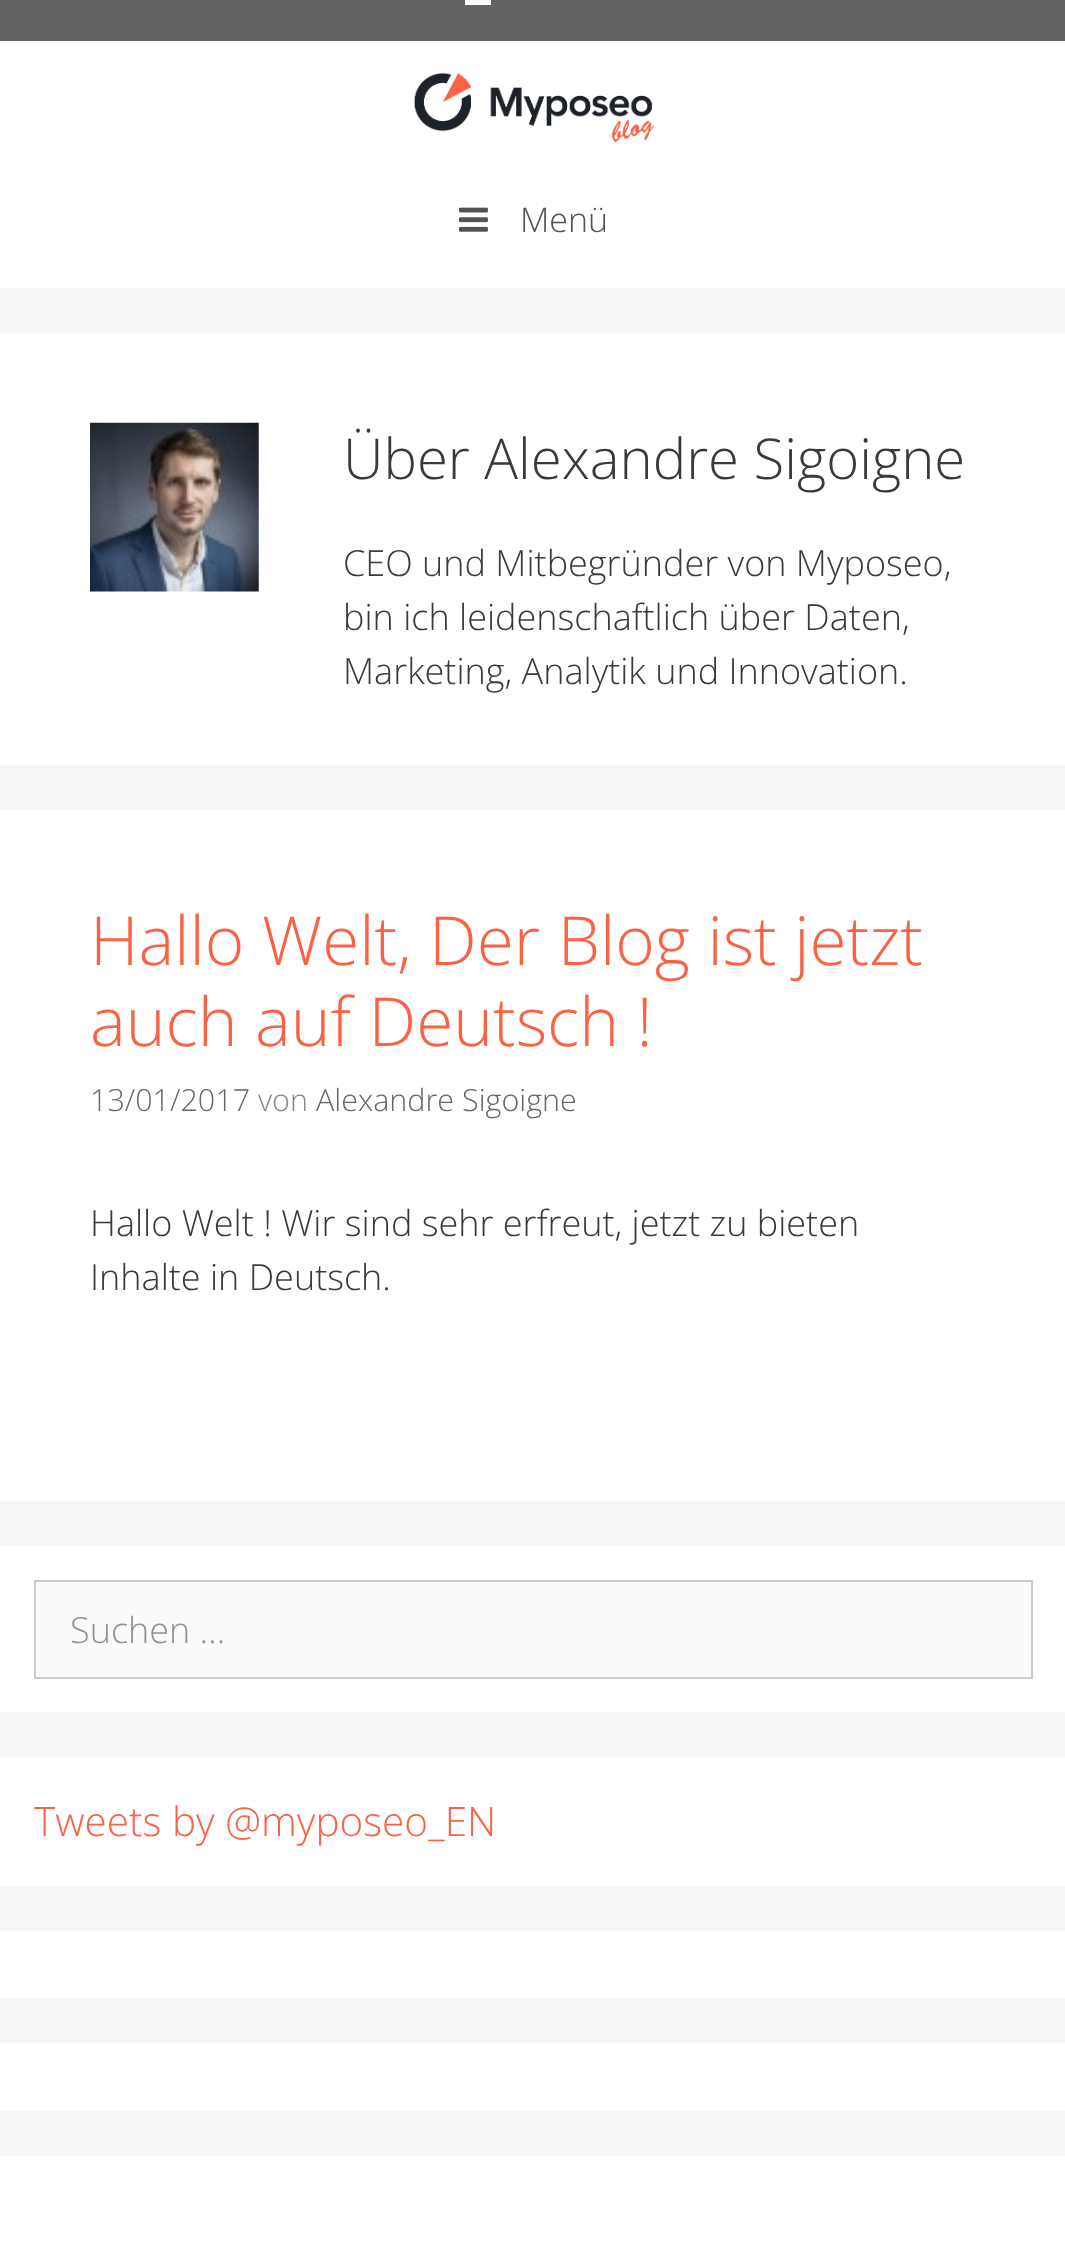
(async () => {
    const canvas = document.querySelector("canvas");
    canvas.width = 1065;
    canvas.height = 2244;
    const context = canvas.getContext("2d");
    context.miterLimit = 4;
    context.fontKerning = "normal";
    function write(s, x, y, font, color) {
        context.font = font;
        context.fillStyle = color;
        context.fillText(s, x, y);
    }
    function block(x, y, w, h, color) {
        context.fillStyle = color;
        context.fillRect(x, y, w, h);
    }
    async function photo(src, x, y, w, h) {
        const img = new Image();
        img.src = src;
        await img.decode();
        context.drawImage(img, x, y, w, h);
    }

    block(0, 0, 1065, 2244, "rgb(247, 245, 246)");
    block(0, 0, 1065, 41, "rgb(99, 99, 99)");
    block(465, 0, 26, 5, "rgb(255, 255, 255)");
    block(0, 41, 1065, 247, "rgb(255, 255, 255)");
    await photo("media/1.png", 414, 73, 240, 70);
    await photo("media/2.png", 459, 207, 29, 25);
    write("Menü", 520, 232, "300 34px Open Sans", "rgb(82, 82, 82)");
    block(0, 333, 1065, 432, "rgb(255, 255, 255)");
    await photo("media/3.png", 90, 422, 169, 170);
    write("Über Alexandre Sigoigne", 343, 479, "300 56.25px Open Sans", "rgb(58, 58, 58)");
    write("CEO und Mitbegründer von Myposeo,", 343, 576, "300 36px Open Sans", "rgb(58, 58, 58)");
    write("bin ich leidenschaftlich über Daten,", 343, 630, "300 36px Open Sans", "rgb(58, 58, 58)");
    write("Marketing, Analytik und Innovation.", 343, 684, "300 36px Open Sans", "rgb(58, 58, 58)");
    block(0, 810, 1065, 691, "rgb(255, 255, 255)");
    write("Hallo Welt, Der Blog ist jetzt", 90, 965, "300 67.5px Open Sans", "rgb(250, 98, 68)");
    write("auch auf Deutsch !", 90, 1046, "300 67.5px Open Sans", "rgb(250, 98, 68)");
    write("13/01/2017", 90, 1111, "300 30.5px Open Sans", "rgb(102, 102, 102)");
    write("von", 258, 1111, "300 30.5px Open Sans", "rgb(136, 136, 136)");
    write("Alexandre Sigoigne", 316, 1111, "300 30.5px Open Sans", "rgb(102, 102, 102)");
    write("Hallo Welt ! Wir sind sehr erfreut, jetzt zu bieten", 90, 1236, "300 36px Open Sans", "rgb(58, 58, 58)");
    write("Inhalte in Deutsch.", 90, 1290, "300 36px Open Sans", "rgb(58, 58, 58)");
    block(0, 1546, 1065, 166, "rgb(255, 255, 255)");
    context.fillStyle = "rgb(250, 250, 250)";
    context.beginPath();
    context.rect(35, 1581, 997, 97);
    context.fill();
    context.strokeStyle = "rgb(204, 204, 204)";
    context.lineWidth = 2;
    context.stroke();
    write("Suchen …", 70, 1643, "300 36px Open Sans", "rgb(146, 146, 146)");
    block(0, 1757, 1065, 129, "rgb(255, 255, 255)");
    write("Tweets by @myposeo_EN", 34, 1836, "300 40.5px Open Sans", "rgb(250, 98, 68)");
    block(0, 1931, 1065, 67, "rgb(255, 255, 255)");
    block(0, 2043, 1065, 68, "rgb(255, 255, 255)");
    block(0, 2156, 1065, 88, "rgb(255, 255, 255)");
})();
